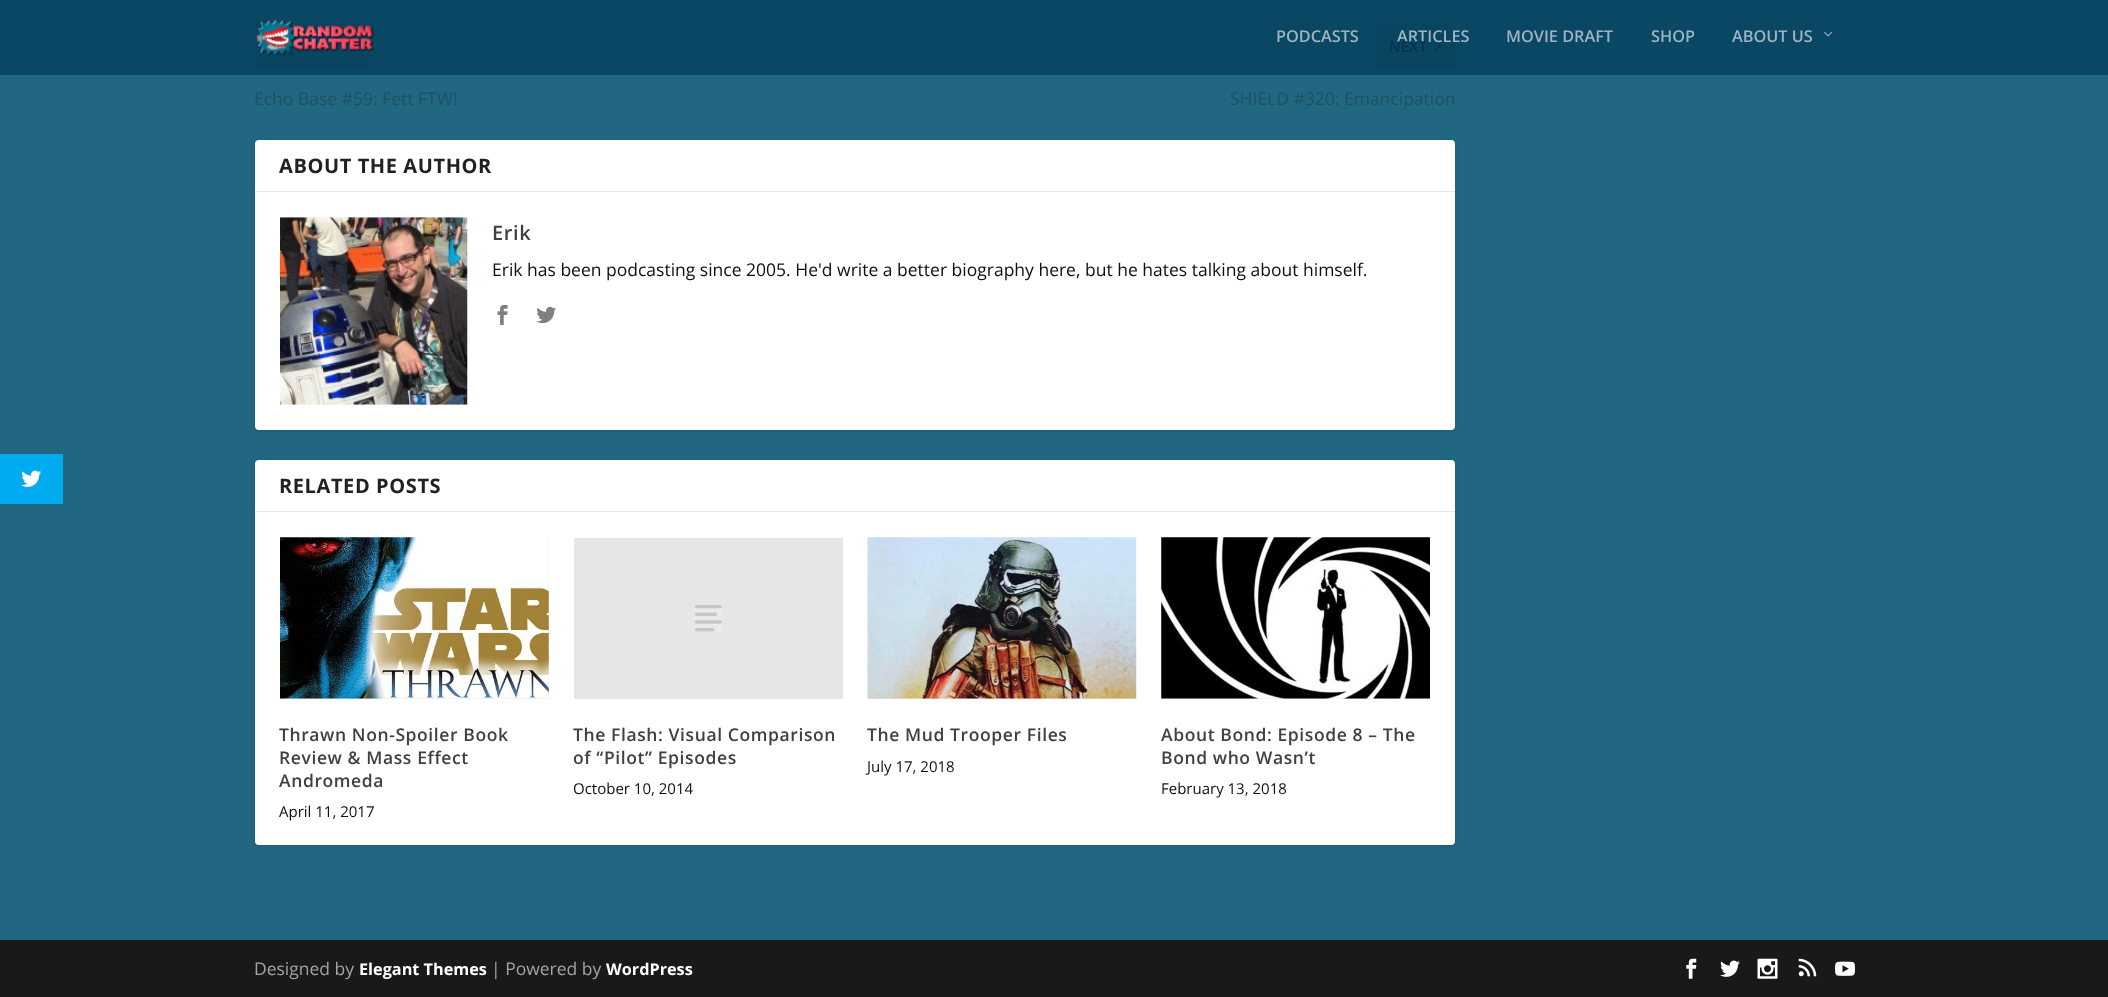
(async () => {
    const canvas = document.querySelector("canvas");
    canvas.width = 2108;
    canvas.height = 997;
    const context = canvas.getContext("2d");
    context.miterLimit = 4;
    context.fontKerning = "normal";
    function write(s, x, y, font, color) {
        context.font = font;
        context.fillStyle = color;
        context.fillText(s, x, y);
    }
    function block(x, y, w, h, color) {
        context.fillStyle = color;
        context.fillRect(x, y, w, h);
    }
    function card(x, y, w, h, r, color) {
        context.fillStyle = color;
        context.beginPath();
        context.roundRect(x, y, w, h, r);
        context.fill();
    }
    async function photo(src, x, y, w, h) {
        const img = new Image();
        img.src = src;
        await img.decode();
        context.drawImage(img, x, y, w, h);
    }

    block(0, 0, 2108, 997, "rgb(33, 103, 130)");
    block(0, 454, 63, 50, "rgb(0, 171, 240)");
    await photo("media/1.png", 21, 470, 21, 17);
    block(0, 0, 2108, 75, "rgb(10, 71, 101)");
    card(255, 23, 115, 46, 4, "rgb(9, 68, 97)");
    await photo("media/2.png", 256, 19, 118, 37);
    write("PODCASTS", 1276, 42, "600 16.25px Open Sans", "rgb(157, 181, 193)");
    card(1374, 23, 81, 46, 4, "rgb(9, 68, 97)");
    await photo("media/4.png", 1435, 41, 6, 10);
    write("ARTICLES", 1397, 42, "600 16.25px Open Sans", "rgb(157, 181, 193)");
    write("MOVIE DRAFT", 1506, 42, "600 16.25px Open Sans", "rgb(157, 181, 193)");
    write("SHOP", 1651, 42, "600 16.25px Open Sans", "rgb(157, 181, 193)");
    write("ABOUT US", 1732, 42, "600 16.25px Open Sans", "rgb(157, 181, 193)");
    await photo("media/3.png", 1824, 31, 9, 6);
    write("Echo Base #59: Fett FTW!", 254, 105, "17.5px Open Sans", "rgb(29, 82, 99)");
    write("NEXT", 1389, 52, "600 15px Open Sans", "rgb(3, 52, 77)");
    write("SHIELD #320: Emancipation", 1230, 105, "17.5px Open Sans", "rgb(29, 82, 99)");
    context.fillStyle = "rgba(0, 0, 0, 0.1)";
    context.filter = "blur(2px)";
    context.beginPath();
    context.roundRect(255, 141, 1200, 290, 4);
    context.fill();
    context.filter = "none";
    card(255, 140, 1200, 290, 4, "rgb(255, 255, 255)");
    block(255, 191, 1200, 1, "rgb(230, 230, 230)");
    context.letterSpacing = "0.6px";
    write("ABOUT THE AUTHOR", 279, 173, "bold 20px Open Sans", "rgb(33, 33, 33)");
    await photo("media/5.png", 280, 217, 188, 188);
    write("Erik", 492, 240, "600 20px Open Sans", "rgb(64, 64, 64)");
    context.letterSpacing = "0px";
    write("Erik has been podcasting since 2005. He'd write a better biography here, but he hates talking about himself.", 492, 276, "17.5px Open Sans", "rgb(15, 15, 15)");
    await photo("media/6.png", 497, 305, 11, 20);
    await photo("media/7.png", 536, 306, 20, 18);
    context.fillStyle = "rgba(0, 0, 0, 0.1)";
    context.filter = "blur(2px)";
    context.beginPath();
    context.roundRect(255, 461, 1200, 385, 4);
    context.fill();
    context.filter = "none";
    card(255, 460, 1200, 385, 4, "rgb(255, 255, 255)");
    block(255, 511, 1200, 1, "rgb(230, 230, 230)");
    context.letterSpacing = "0.6px";
    write("RELATED POSTS", 279, 493, "bold 20px Open Sans", "rgb(33, 33, 33)");
    block(280, 538, 269, 161, "rgb(230, 230, 230)");
    await photo("media/8.png", 280, 537, 269, 162);
    write("Thrawn Non-Spoiler Book", 279, 741, "600 17.5px Open Sans", "rgb(64, 64, 64)");
    write("Review & Mass Effect", 279, 764, "600 17.5px Open Sans", "rgb(64, 64, 64)");
    write("Andromeda", 279, 787, "600 17.5px Open Sans", "rgb(64, 64, 64)");
    context.letterSpacing = "0px";
    write("April 11, 2017", 279, 817, "15px Open Sans", "rgb(15, 15, 15)");
    block(574, 538, 269, 161, "rgb(230, 230, 230)");
    await photo("media/9.png", 694, 605, 28, 27);
    context.letterSpacing = "0.6px";
    write("The Flash: Visual Comparison", 573, 741, "600 17.5px Open Sans", "rgb(64, 64, 64)");
    write("of “Pilot” Episodes", 573, 764, "600 17.5px Open Sans", "rgb(64, 64, 64)");
    context.letterSpacing = "0px";
    write("October 10, 2014", 573, 794, "15px Open Sans", "rgb(15, 15, 15)");
    block(868, 698, 268, 1, "rgb(230, 230, 230)");
    await photo("media/10.png", 867, 537, 270, 162);
    context.letterSpacing = "0.6px";
    write("The Mud Trooper Files", 867, 741, "600 17.5px Open Sans", "rgb(64, 64, 64)");
    context.letterSpacing = "0px";
    write("July 17, 2018", 867, 772, "15px Open Sans", "rgb(15, 15, 15)");
    block(1161, 538, 269, 161, "rgb(230, 230, 230)");
    await photo("media/11.png", 1161, 537, 269, 162);
    context.letterSpacing = "0.6px";
    write("About Bond: Episode 8 – The", 1161, 741, "600 17.5px Open Sans", "rgb(64, 64, 64)");
    write("Bond who Wasn’t", 1161, 764, "600 17.5px Open Sans", "rgb(64, 64, 64)");
    context.letterSpacing = "0px";
    write("February 13, 2018", 1161, 794, "15px Open Sans", "rgb(15, 15, 15)");
    block(0, 940, 2108, 57, "rgb(25, 25, 25)");
    write("Designed by", 254, 975, "17.5px Open Sans", "rgb(163, 163, 163)");
    write("Elegant Themes", 359, 975, "bold 16.25px Open Sans", "rgb(255, 255, 255)");
    write("| Powered by", 491, 975, "17.5px Open Sans", "rgb(163, 163, 163)");
    write("WordPress", 606, 975, "bold 16.25px Open Sans", "rgb(255, 255, 255)");
    await photo("media/12.png", 1686, 958, 11, 21);
    await photo("media/13.png", 1720, 960, 20, 17);
    await photo("media/14.png", 1757, 958, 21, 21);
    await photo("media/15.png", 1798, 958, 19, 19);
    await photo("media/16.png", 1835, 961, 20, 15);
})();
